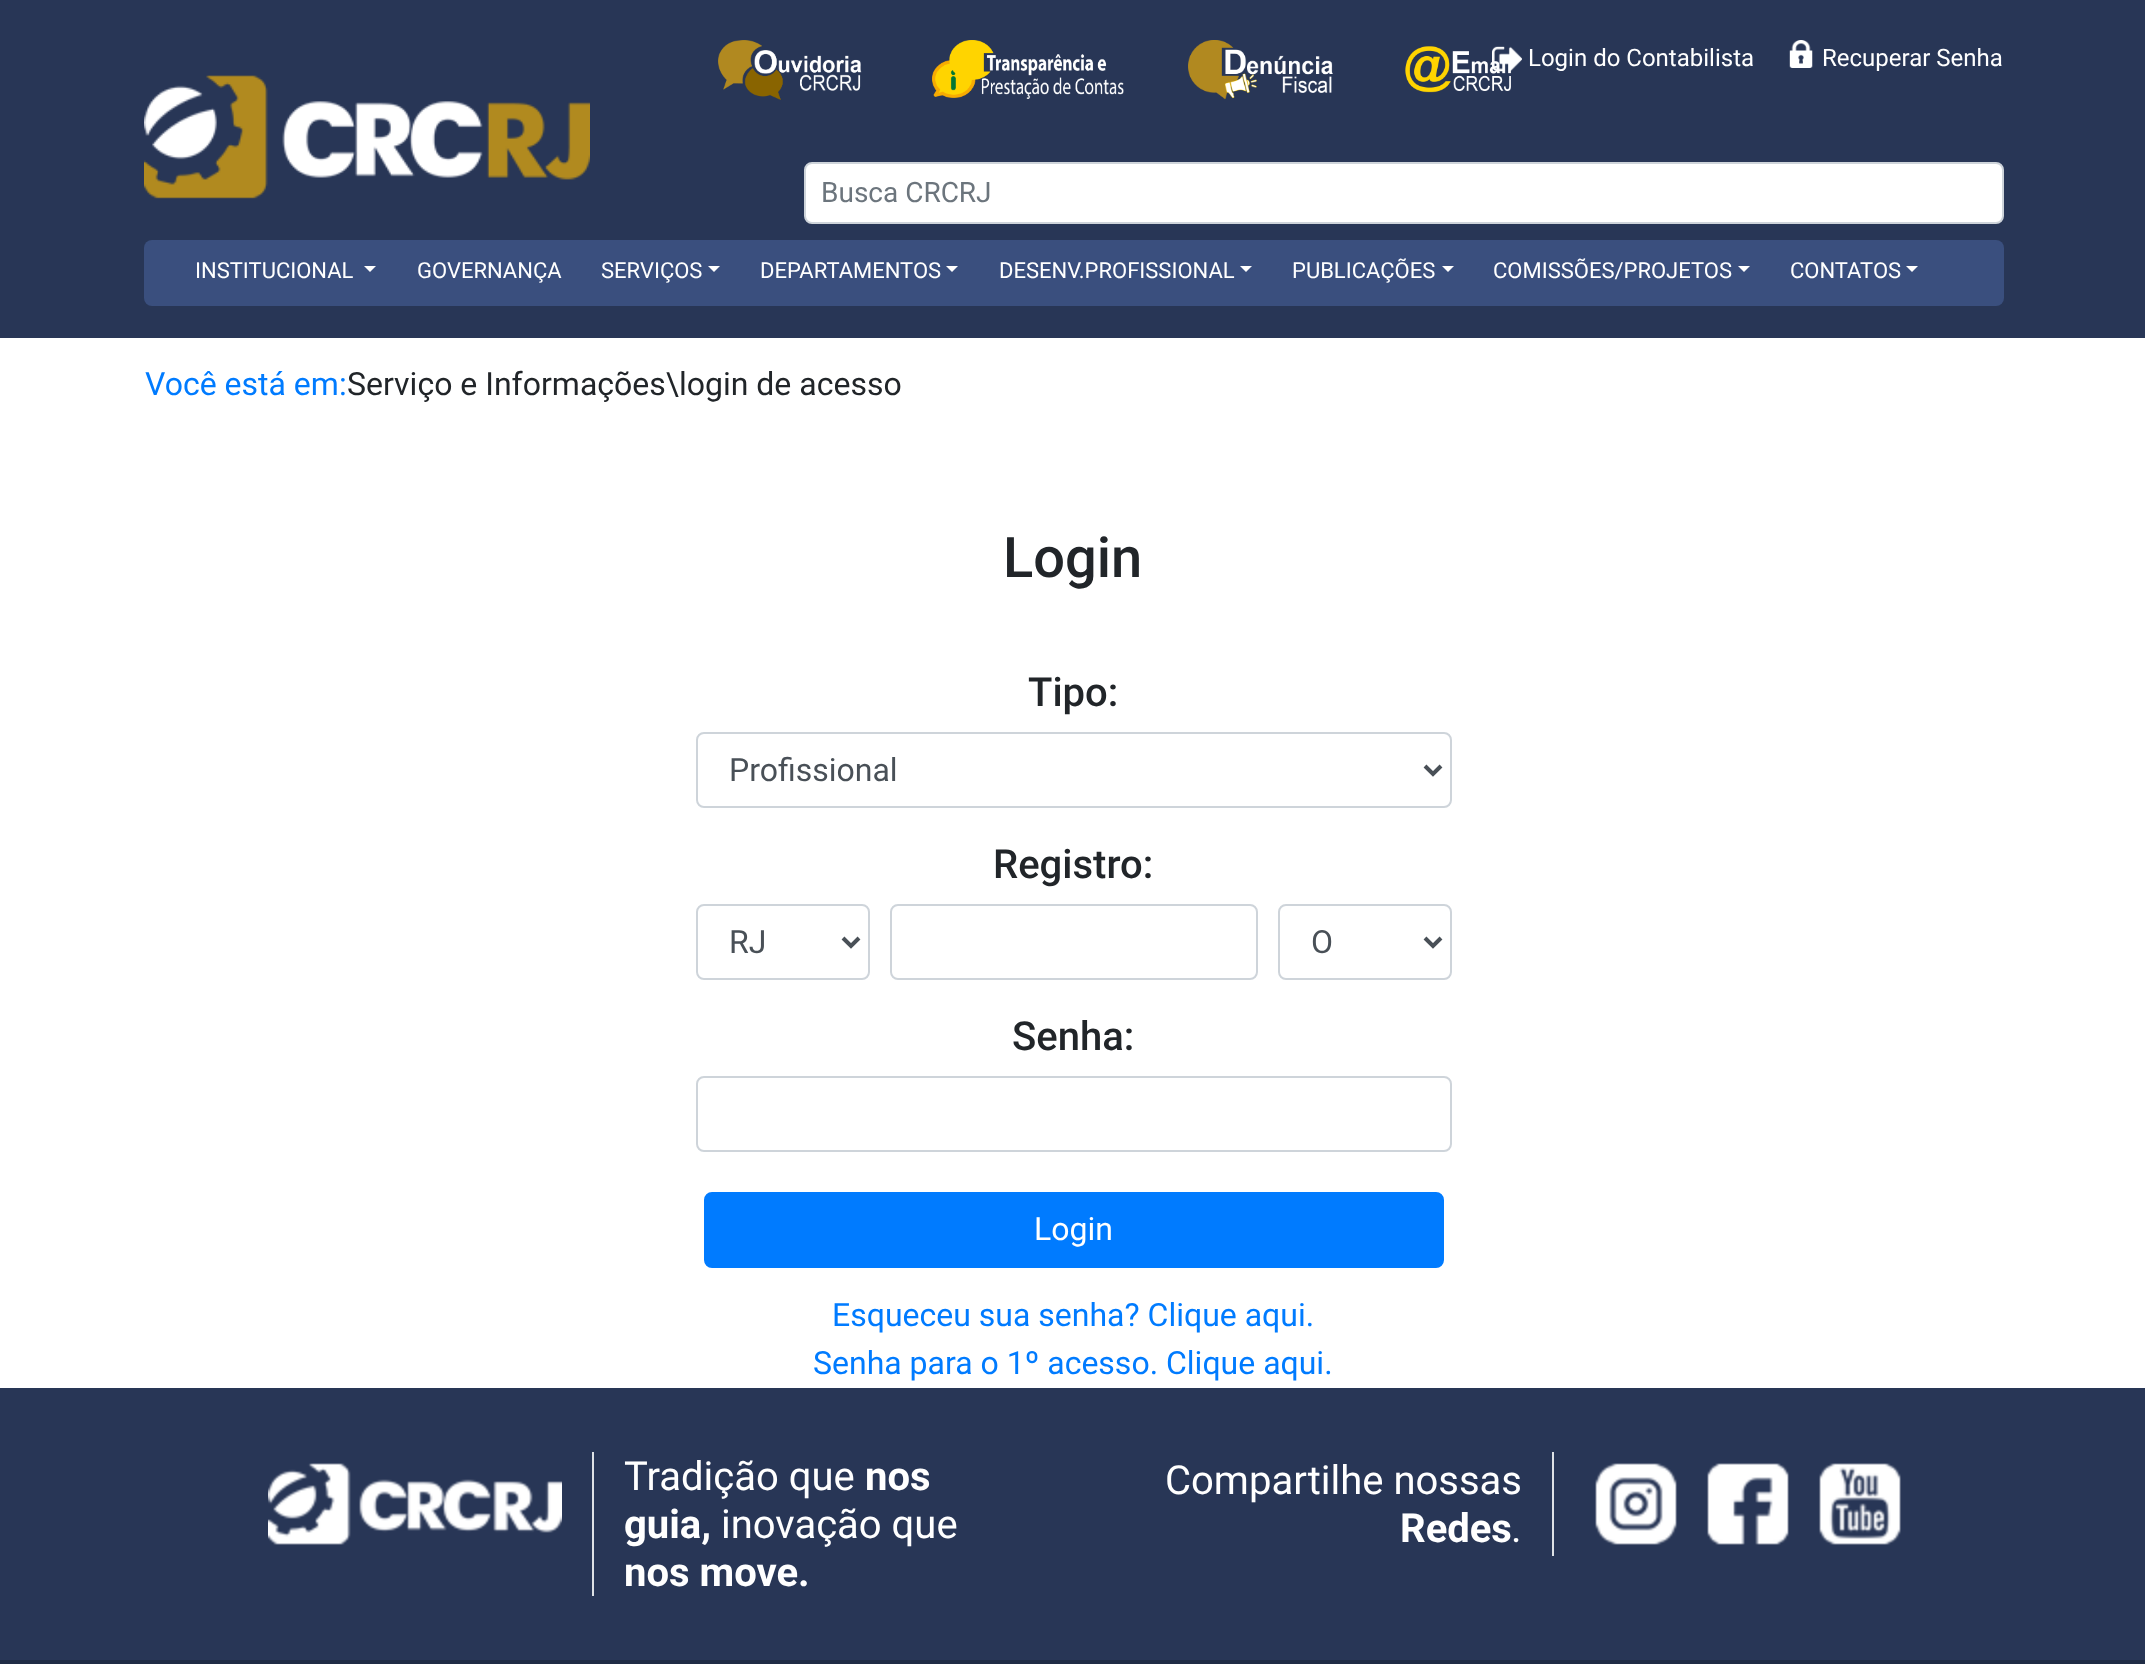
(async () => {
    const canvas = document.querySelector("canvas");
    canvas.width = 2145;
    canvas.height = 1664;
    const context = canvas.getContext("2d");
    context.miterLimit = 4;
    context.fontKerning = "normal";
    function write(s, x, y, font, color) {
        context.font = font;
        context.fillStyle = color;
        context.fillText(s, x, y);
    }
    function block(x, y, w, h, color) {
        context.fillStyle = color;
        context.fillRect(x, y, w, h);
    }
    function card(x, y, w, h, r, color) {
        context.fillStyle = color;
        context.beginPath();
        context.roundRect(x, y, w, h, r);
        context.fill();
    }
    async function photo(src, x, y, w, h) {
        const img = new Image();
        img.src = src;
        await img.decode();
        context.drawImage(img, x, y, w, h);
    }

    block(0, 0, 2145, 1664, "rgb(255, 255, 255)");
    block(0, 0, 2145, 338, "rgb(40, 54, 86)");
    await photo("media/1.png", 718, 40, 144, 60);
    await photo("media/2.png", 932, 40, 192, 59);
    await photo("media/3.png", 1188, 40, 145, 60);
    await photo("media/5.png", 1492, 46, 30, 26);
    await photo("media/4.png", 1405, 46, 106, 47);
    write("Login do Contabilista", 1528, 66, "24px Roboto", "rgb(255, 255, 255)");
    await photo("media/6.png", 1789, 40, 24, 28);
    write("Recuperar Senha", 1822, 66, "24px Roboto", "rgb(255, 255, 255)");
    await photo("media/7.png", 144, 75, 446, 124);
    context.beginPath();
    context.roundRect(805, 163, 1198, 60, 7);
    context.fill();
    context.strokeStyle = "rgb(206, 212, 218)";
    context.lineWidth = 2;
    context.stroke();
    write("Busca CRCRJ", 821, 202, "28px Roboto", "rgb(108, 117, 125)");
    card(144, 240, 1860, 66, 8, "rgb(58, 79, 126)");
    write("INSTITUCIONAL", 195, 278, "22px Roboto", "rgb(255, 255, 255)");
    context.beginPath();
    context.moveTo(364, 266);
    context.lineTo(376, 266);
    context.lineTo(370, 272);
    context.closePath();
    context.fill();
    write("GOVERNANÇA", 417, 278, "22px Roboto", "rgb(255, 255, 255)");
    write("SERVIÇOS", 601, 278, "22px Roboto", "rgb(255, 255, 255)");
    context.beginPath();
    context.moveTo(708, 266);
    context.lineTo(720, 266);
    context.lineTo(714, 272);
    context.closePath();
    context.fill();
    write("DEPARTAMENTOS", 760, 278, "22px Roboto", "rgb(255, 255, 255)");
    context.beginPath();
    context.moveTo(946, 266);
    context.lineTo(958, 266);
    context.lineTo(952, 272);
    context.closePath();
    context.fill();
    write("DESENV.PROFISSIONAL", 999, 278, "22px Roboto", "rgb(255, 255, 255)");
    context.beginPath();
    context.moveTo(1240, 266);
    context.lineTo(1252, 266);
    context.lineTo(1246, 272);
    context.closePath();
    context.fill();
    write("PUBLICAÇÕES", 1292, 278, "22px Roboto", "rgb(255, 255, 255)");
    context.beginPath();
    context.moveTo(1442, 266);
    context.lineTo(1454, 266);
    context.lineTo(1448, 272);
    context.closePath();
    context.fill();
    write("COMISSÕES/PROJETOS", 1493, 278, "22px Roboto", "rgb(255, 255, 255)");
    context.beginPath();
    context.moveTo(1738, 266);
    context.lineTo(1750, 266);
    context.lineTo(1744, 272);
    context.closePath();
    context.fill();
    write("CONTATOS", 1790, 278, "22px Roboto", "rgb(255, 255, 255)");
    context.beginPath();
    context.moveTo(1906, 266);
    context.lineTo(1918, 266);
    context.lineTo(1912, 272);
    context.closePath();
    context.fill();
    write("Você está em:", 145, 395, "32px Roboto", "rgb(0, 123, 255)");
    write("Serviço e Informações\\login de acesso", 347, 395, "32px Roboto", "rgb(33, 37, 41)");
    write("Login", 1003, 577, "500 56px Roboto", "rgb(33, 37, 41)");
    write("Tipo:", 1028, 706, "500 40px Roboto", "rgb(33, 37, 41)");
    context.beginPath();
    context.roundRect(697, 733, 754, 74, 7);
    context.stroke();
    context.beginPath();
    context.moveTo(1425, 766);
    context.lineTo(1433, 774);
    context.lineTo(1441, 766);
    context.strokeStyle = "rgb(73, 80, 87)";
    context.lineWidth = 4;
    context.stroke();
    write("Profissional", 729, 781, "32px Roboto", "rgb(73, 80, 87)");
    write("Registro:", 993, 878, "500 40px Roboto", "rgb(33, 37, 41)");
    context.beginPath();
    context.roundRect(697, 905, 172, 74, 7);
    context.strokeStyle = "rgb(206, 212, 218)";
    context.lineWidth = 2;
    context.stroke();
    context.beginPath();
    context.moveTo(843, 938);
    context.lineTo(851, 946);
    context.lineTo(859, 938);
    context.strokeStyle = "rgb(73, 80, 87)";
    context.lineWidth = 4;
    context.stroke();
    write("RJ", 729, 953, "32px Roboto", "rgb(73, 80, 87)");
    context.beginPath();
    context.roundRect(891, 905, 366, 74, 7);
    context.strokeStyle = "rgb(206, 212, 218)";
    context.lineWidth = 2;
    context.stroke();
    context.beginPath();
    context.roundRect(1279, 905, 172, 74, 7);
    context.stroke();
    context.beginPath();
    context.moveTo(1425, 938);
    context.lineTo(1433, 946);
    context.lineTo(1441, 938);
    context.strokeStyle = "rgb(73, 80, 87)";
    context.lineWidth = 4;
    context.stroke();
    write("O", 1311, 953, "32px Roboto", "rgb(73, 80, 87)");
    write("Senha:", 1012, 1050, "500 40px Roboto", "rgb(33, 37, 41)");
    context.beginPath();
    context.roundRect(697, 1077, 754, 74, 7);
    context.strokeStyle = "rgb(206, 212, 218)";
    context.lineWidth = 2;
    context.stroke();
    context.fillStyle = "rgb(0, 123, 255)";
    context.beginPath();
    context.roundRect(705, 1193, 738, 74, 7);
    context.fill();
    context.strokeStyle = "rgb(0, 123, 255)";
    context.stroke();
    write("Login", 1034, 1240, "32px Roboto", "rgb(255, 255, 255)");
    write("Esqueceu sua senha? Clique aqui.", 832, 1326, "32px Roboto", "rgb(0, 123, 255)");
    write("Senha para o 1º acesso. Clique aqui.", 813, 1374, "32px Roboto", "rgb(0, 123, 255)");
    block(0, 1388, 2145, 272, "rgb(40, 54, 86)");
    block(592, 1452, 2, 144, "rgb(222, 226, 230)");
    await photo("media/8.png", 268, 1463, 294, 82);
    write("Tradição que", 624, 1490, "40px Roboto", "rgb(255, 255, 255)");
    write("nos", 865, 1490, "bold 40px Roboto", "rgb(255, 255, 255)");
    write("guia,", 624, 1538, "bold 40px Roboto", "rgb(255, 255, 255)");
    write("inovação que", 721, 1538, "40px Roboto", "rgb(255, 255, 255)");
    write("nos move.", 624, 1586, "bold 40px Roboto", "rgb(255, 255, 255)");
    block(1552, 1452, 2, 104, "rgb(222, 226, 230)");
    write("Compartilhe nossas", 1165, 1494, "40px Roboto", "rgb(255, 255, 255)");
    write("Redes", 1400, 1542, "bold 40px Roboto", "rgb(255, 255, 255)");
    write(".", 1511, 1542, "40px Roboto", "rgb(255, 255, 255)");
    await photo("media/9.png", 1595, 1463, 82, 82);
    await photo("media/10.png", 1707, 1463, 82, 82);
    await photo("media/11.png", 1819, 1463, 82, 82);
    block(0, 1660, 2145, 4, "rgb(32, 44, 69)");
})();
